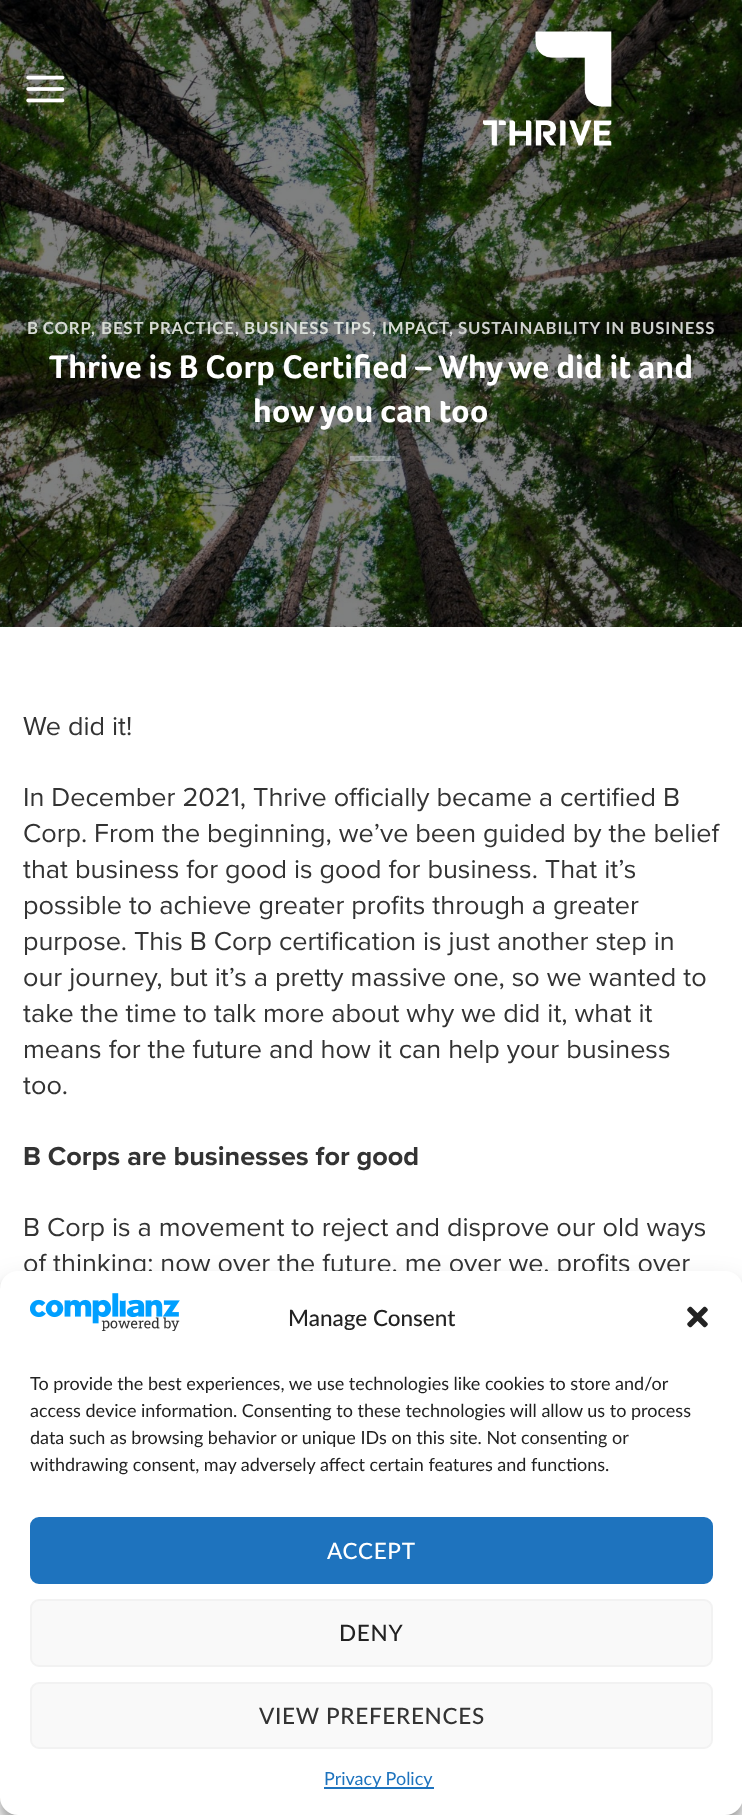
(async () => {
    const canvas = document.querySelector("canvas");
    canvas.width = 742;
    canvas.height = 1815;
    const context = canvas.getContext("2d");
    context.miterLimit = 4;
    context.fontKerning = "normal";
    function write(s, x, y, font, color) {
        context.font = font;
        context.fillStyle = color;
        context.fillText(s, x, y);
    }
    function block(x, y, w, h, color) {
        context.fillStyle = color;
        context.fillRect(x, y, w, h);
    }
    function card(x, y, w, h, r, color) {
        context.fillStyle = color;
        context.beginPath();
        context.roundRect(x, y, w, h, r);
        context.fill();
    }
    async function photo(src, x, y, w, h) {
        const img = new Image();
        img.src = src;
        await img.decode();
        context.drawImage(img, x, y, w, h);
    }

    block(0, 0, 742, 1815, "rgb(255, 255, 255)");
    await photo("media/3.png", 0, 0, 742, 627);
    await photo("media/1.png", 26, 75, 39, 28);
    await photo("media/2.png", 483, 31, 129, 115);
    context.letterSpacing = "0.85px";
    context.wordSpacing = "-1px";
    write("B CORP", 27, 334, "bold 16.75px Lato", "rgb(214, 218, 211)");
    context.wordSpacing = "0px";
    write(",", 91, 334, "bold 16.75px Lato", "rgb(218, 223, 217)");
    write("BEST PRACTICE", 101, 334, "bold 16.75px Lato", "rgb(214, 218, 211)");
    write(",", 235, 334, "bold 16.75px Lato", "rgb(218, 223, 217)");
    write("BUSINESS TIPS", 244, 334, "bold 16.75px Lato", "rgb(218, 223, 217)");
    write(",", 372, 334, "bold 16.75px Lato", "rgb(225, 226, 227)");
    write("IMPACT", 382, 334, "bold 16.75px Lato", "rgb(214, 218, 211)");
    write(",", 449, 334, "bold 16.75px Lato", "rgb(225, 226, 227)");
    write("SUSTAINABILITY IN BUSINESS", 458, 334, "bold 16.75px Lato", "rgb(207, 209, 206)");
    context.letterSpacing = "0px";
    context.wordSpacing = "0.25px";
    write("Thrive is B Corp Certified – Why we did it and", 49, 378, "bold 33.6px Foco", "rgb(255, 255, 255)");
    context.wordSpacing = "0px";
    write("how you can too", 253, 422, "bold 33.6px Foco", "rgb(255, 255, 255)");
    block(350, 456, 45, 5, "rgba(255, 255, 255, 0.3)");
    write("We did it!", 23, 735, "27px Proxima Nova", "rgb(51, 51, 51)");
    write("In December 2021, Thrive officially became a certified B", 23, 806, "27px Proxima Nova", "rgb(51, 51, 51)");
    write("Corp. From the beginning, we’ve been guided by the belief", 23, 842, "27px Proxima Nova", "rgb(51, 51, 51)");
    write("that business for good is good for business. That it’s", 23, 878, "27px Proxima Nova", "rgb(51, 51, 51)");
    write("possible to achieve greater profits through a greater", 23, 914, "27px Proxima Nova", "rgb(51, 51, 51)");
    write("purpose. This B Corp certification is just another step in", 23, 950, "27px Proxima Nova", "rgb(51, 51, 51)");
    write("our journey, but it’s a pretty massive one, so we wanted to", 23, 986, "27px Proxima Nova", "rgb(51, 51, 51)");
    write("take the time to talk more about why we did it, what it", 23, 1022, "27px Proxima Nova", "rgb(51, 51, 51)");
    write("means for the future and how it can help your business", 23, 1058, "27px Proxima Nova", "rgb(51, 51, 51)");
    write("too.", 23, 1094, "27px Proxima Nova", "rgb(51, 51, 51)");
    write("B Corps are businesses for good", 23, 1165, "bold 27px Proxima Nova", "rgb(51, 51, 51)");
    write("B Corp is a movement to reject and disprove our old ways", 23, 1236, "27px Proxima Nova", "rgb(51, 51, 51)");
    write("of thinking: now over the future, me over we, profits over", 23, 1272, "27px Proxima Nova", "rgb(51, 51, 51)");
    context.fillStyle = "rgba(0, 0, 0, 0.23)";
    context.filter = "blur(4.5px)";
    context.beginPath();
    context.roundRect(0, 1280, 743, 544, 18);
    context.fill();
    context.filter = "none";
    context.fillStyle = "rgba(0, 0, 0, 0.19)";
    context.filter = "blur(15px)";
    context.beginPath();
    context.roundRect(0, 1286, 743, 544, 18);
    context.fill();
    context.filter = "none";
    card(0, 1271, 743, 544, 18, "rgb(255, 255, 255)");
    await photo("media/4.png", 30, 1293, 150, 38);
    write("Manage Consent", 288, 1326, "500 22.5px Lato", "rgb(34, 34, 34)");
    await photo("media/5.png", 687, 1306, 21, 22);
    write("To provide the best experiences, we use technologies like cookies to store and/or", 30, 1390, "18px Lato", "rgb(34, 34, 34)");
    write("access device information. Consenting to these technologies will allow us to process", 30, 1417, "18px Lato", "rgb(34, 34, 34)");
    write("data such as browsing behavior or unique IDs on this site. Not consenting or", 30, 1444, "18px Lato", "rgb(34, 34, 34)");
    write("withdrawing consent, may adversely affect certain features and functions.", 30, 1471, "18px Lato", "rgb(34, 34, 34)");
    context.fillStyle = "rgb(30, 115, 190)";
    context.beginPath();
    context.roundRect(31, 1518, 681, 65, 8);
    context.fill();
    context.strokeStyle = "rgb(30, 115, 190)";
    context.lineWidth = 2;
    context.stroke();
    context.letterSpacing = "0.7px";
    write("ACCEPT", 327, 1559, "500 22.5px Lato", "rgb(255, 255, 255)");
    context.fillStyle = "rgb(249, 249, 249)";
    context.beginPath();
    context.roundRect(31, 1600, 681, 66, 8);
    context.fill();
    context.strokeStyle = "rgb(242, 242, 242)";
    context.stroke();
    write("DENY", 339, 1641, "500 22.5px Lato", "rgb(34, 34, 34)");
    context.fillStyle = "rgb(249, 249, 249)";
    context.beginPath();
    context.roundRect(31, 1683, 681, 65, 8);
    context.fill();
    context.stroke();
    write("VIEW PREFERENCES", 259, 1724, "500 22.5px Lato", "rgb(51, 51, 51)");
    block(324, 1787, 110, 2, "rgb(30, 115, 190)");
    context.letterSpacing = "0px";
    write("Privacy Policy", 324, 1785, "18px Lato", "rgb(30, 115, 190)");
})();
